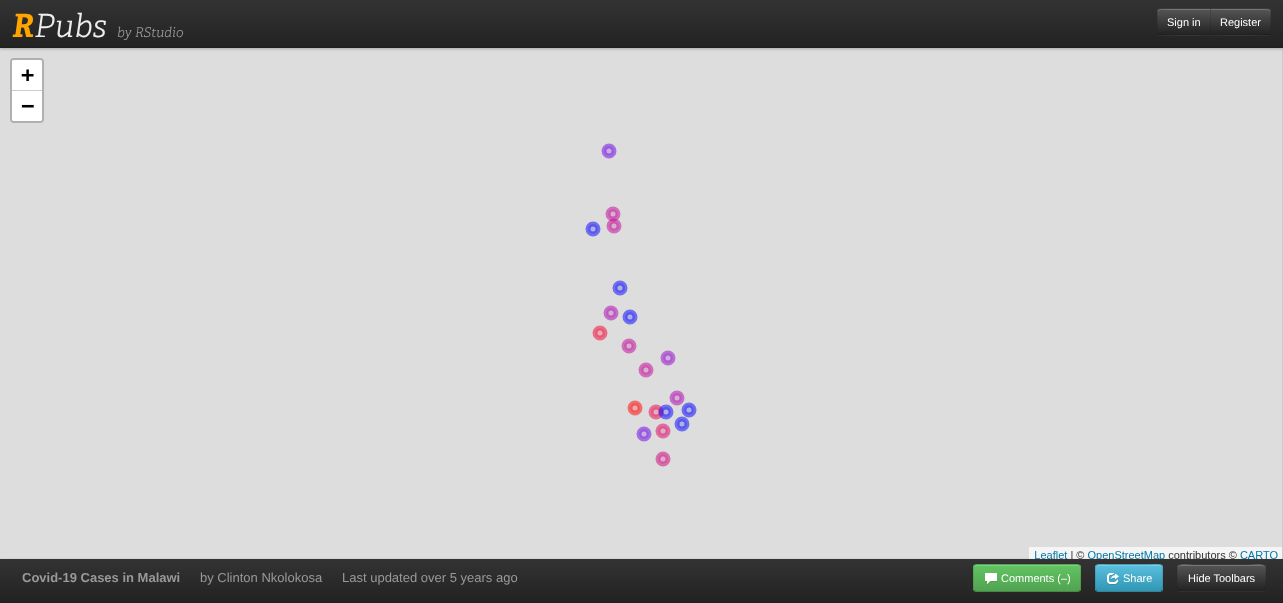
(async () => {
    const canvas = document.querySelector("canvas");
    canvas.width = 1283;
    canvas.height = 603;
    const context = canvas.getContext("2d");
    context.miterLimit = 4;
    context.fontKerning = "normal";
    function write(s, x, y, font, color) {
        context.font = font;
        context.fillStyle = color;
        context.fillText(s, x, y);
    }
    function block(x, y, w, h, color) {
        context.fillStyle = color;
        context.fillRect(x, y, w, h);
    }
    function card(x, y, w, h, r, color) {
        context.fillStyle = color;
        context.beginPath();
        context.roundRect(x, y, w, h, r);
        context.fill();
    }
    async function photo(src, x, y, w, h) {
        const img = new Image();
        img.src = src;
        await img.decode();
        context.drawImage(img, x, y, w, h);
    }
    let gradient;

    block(0, 0, 1283, 603, "rgb(255, 255, 255)");
    await photo("media/1.png", 0, 48, 1282, 511);
    block(1282, 48, 1, 515, "rgb(204, 204, 204)");
    context.fillStyle = "rgba(0, 0, 0, 0.25)";
    context.filter = "blur(1.5px)";
    context.beginPath();
    context.rect(0, 1, 1283, 48);
    context.fill();
    context.filter = "none";
    gradient = context.createLinearGradient(642, 0, 642, 48);
    gradient.addColorStop(0, "rgb(51, 51, 51)");
    gradient.addColorStop(1, "rgb(34, 34, 34)");
    context.fillStyle = gradient;
    context.fillRect(0, 0, 1283, 47);
    block(0, 47, 1283, 1, "rgb(31, 31, 31)");
    write("R", 12, 37, "italic bold 32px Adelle", "rgb(255, 165, 0)");
    write("Pubs", 34, 37, "italic 300 32px Adelle", "rgb(238, 238, 238)");
    write("by RStudio", 117, 37, "italic 300 13.5px Adelle", "rgb(153, 153, 153)");
    context.fillStyle = "rgb(65, 65, 65)";
    context.beginPath();
    context.roundRect(1157, 8, 54, 28, [4, 0, 0, 4]);
    context.fill();
    context.save();
    context.beginPath();
    context.roundRect(1157, 8, 54, 28, [4, 0, 0, 4]);
    context.clip();
    gradient = context.createLinearGradient(1184, 9, 1184, 35);
    gradient.addColorStop(0, "rgb(85, 85, 85)");
    gradient.addColorStop(1, "rgb(34, 34, 34)");
    context.fillStyle = gradient;
    context.fillRect(1157, 9, 53, 26);
    context.restore();
    context.fillStyle = "rgb(118, 118, 118)";
    context.beginPath();
    context.moveTo(1161, 10);
    context.lineTo(1210, 10);
    context.lineTo(1210, 9);
    context.lineTo(1161, 9);
    context.bezierCurveTo(1159, 9, 1158, 10, 1158, 12);
    context.lineTo(1158, 13);
    context.bezierCurveTo(1158, 11, 1159, 10, 1161, 10);
    context.closePath();
    context.fill();
    context.fillStyle = "rgba(0, 0, 0, 0.1)";
    context.beginPath();
    context.moveTo(1161, 8);
    context.lineTo(1158, 9);
    context.lineTo(1159, 10);
    context.bezierCurveTo(1161, 8, 1204, 9, 1210, 9);
    context.lineTo(1211, 8);
    context.closePath();
    context.fill();
    context.fillStyle = "rgba(0, 0, 0, 0.25)";
    context.beginPath();
    context.moveTo(1211, 36);
    context.lineTo(1210, 35);
    context.bezierCurveTo(1204, 35, 1161, 36, 1159, 34);
    context.lineTo(1158, 35);
    context.lineTo(1161, 36);
    context.closePath();
    context.fill();
    context.fillStyle = "rgba(0, 0, 0, 0.1)";
    context.beginPath();
    context.moveTo(1157, 12);
    context.lineTo(1157, 32);
    context.bezierCurveTo(1157, 33, 1157.5, 34, 1158, 35);
    context.lineTo(1159, 34);
    context.bezierCurveTo(1158, 34, 1158, 33, 1158, 32);
    context.lineTo(1158, 12);
    context.bezierCurveTo(1158, 11, 1158, 10, 1159, 10);
    context.lineTo(1158, 9);
    context.bezierCurveTo(1157.5, 10, 1157, 11, 1157, 12);
    context.closePath();
    context.fill();
    write("Sign in", 1167, 26, "11px Liberation Sans", "rgb(255, 255, 255)");
    context.fillStyle = "rgb(65, 65, 65)";
    context.beginPath();
    context.roundRect(1210, 8, 61, 28, [0, 4, 4, 0]);
    context.fill();
    context.save();
    context.beginPath();
    context.roundRect(1210, 8, 61, 28, [0, 4, 4, 0]);
    context.clip();
    gradient = context.createLinearGradient(1241, 9, 1241, 35);
    gradient.addColorStop(0, "rgb(85, 85, 85)");
    gradient.addColorStop(1, "rgb(34, 34, 34)");
    context.fillStyle = gradient;
    context.fillRect(1210, 9, 61, 26);
    context.restore();
    context.fillStyle = "rgb(118, 118, 118)";
    context.beginPath();
    context.moveTo(1211, 10);
    context.lineTo(1267, 10);
    context.bezierCurveTo(1269, 10, 1270, 11, 1270, 13);
    context.lineTo(1270, 12);
    context.bezierCurveTo(1270, 10, 1269, 9, 1267, 9);
    context.lineTo(1211, 9);
    context.closePath();
    context.fill();
    context.fillStyle = "rgba(0, 0, 0, 0.1)";
    context.beginPath();
    context.moveTo(1210, 8);
    context.lineTo(1211, 9);
    context.bezierCurveTo(1218, 9, 1267, 8, 1269, 10);
    context.lineTo(1270, 9);
    context.lineTo(1267, 8);
    context.closePath();
    context.fill();
    context.beginPath();
    context.moveTo(1271, 32);
    context.lineTo(1271, 12);
    context.bezierCurveTo(1271, 11, 1270.5, 10, 1270, 9);
    context.lineTo(1269, 10);
    context.bezierCurveTo(1270, 10, 1270, 11, 1270, 12);
    context.lineTo(1270, 32);
    context.bezierCurveTo(1270, 33, 1270, 34, 1269, 34);
    context.lineTo(1270, 35);
    context.bezierCurveTo(1270.5, 34, 1271, 33, 1271, 32);
    context.closePath();
    context.fill();
    context.fillStyle = "rgba(0, 0, 0, 0.25)";
    context.beginPath();
    context.moveTo(1267, 36);
    context.lineTo(1270, 35);
    context.lineTo(1269, 34);
    context.bezierCurveTo(1267, 36, 1218, 35, 1211, 35);
    context.lineTo(1210, 36);
    context.closePath();
    context.fill();
    context.fillStyle = "rgba(0, 0, 0, 0.1)";
    context.beginPath();
    context.moveTo(1210, 8);
    context.lineTo(1210, 36);
    context.lineTo(1211, 35);
    context.lineTo(1211, 9);
    context.closePath();
    context.fill();
    write("Register", 1220, 26, "11px Liberation Sans", "rgb(255, 255, 255)");
    context.fillStyle = "rgba(0, 0, 0, 0.25)";
    context.filter = "blur(1.5px)";
    context.beginPath();
    context.rect(0, 560, 1283, 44);
    context.fill();
    context.filter = "none";
    gradient = context.createLinearGradient(642, 559, 642, 603);
    gradient.addColorStop(0, "rgb(51, 51, 51)");
    gradient.addColorStop(1, "rgb(34, 34, 34)");
    context.fillStyle = gradient;
    context.fillRect(0, 559, 1283, 43);
    block(0, 602, 1283, 1, "rgb(31, 31, 31)");
    write("Covid-19 Cases in Malawi", 22, 582, "bold 13px Liberation Sans", "rgb(153, 153, 153)");
    write("by Clinton Nkolokosa", 200, 582, "13px Liberation Sans", "rgb(153, 153, 153)");
    write("Last updated over 5 years ago", 342, 582, "13px Liberation Sans", "rgb(153, 153, 153)");
    card(973, 564, 108, 28, 4, "rgb(91, 183, 91)");
    context.save();
    context.beginPath();
    context.roundRect(973, 564, 108, 28, 4);
    context.clip();
    gradient = context.createLinearGradient(1027, 565, 1027, 591);
    gradient.addColorStop(0, "rgb(98, 196, 98)");
    gradient.addColorStop(1, "rgb(81, 163, 81)");
    context.fillStyle = gradient;
    context.fillRect(973, 565, 108, 26);
    context.restore();
    context.fillStyle = "rgb(129, 207, 129)";
    context.beginPath();
    context.moveTo(977, 566);
    context.lineTo(1078, 566);
    context.bezierCurveTo(1079, 566, 1080, 568, 1080, 569);
    context.lineTo(1080, 568);
    context.bezierCurveTo(1080, 566, 1079, 565, 1077, 565);
    context.lineTo(977, 565);
    context.bezierCurveTo(975, 565, 974, 566, 974, 568);
    context.bezierCurveTo(974, 567, 975, 566, 977, 566);
    context.closePath();
    context.moveTo(1080, 586);
    context.lineTo(1080, 589);
    context.closePath();
    context.fill("evenodd");
    context.beginPath();
    context.moveTo(1079.5, 590.5);
    context.lineTo(1077.5, 591.5);
    context.lineTo(993.5, 591.5);
    context.lineTo(977, 591.5);
    context.lineTo(974.5, 590.5);
    context.strokeStyle = "rgba(0, 0, 0, 0.25)";
    context.stroke();
    context.beginPath();
    context.moveTo(974.5, 590.5);
    context.bezierCurveTo(972.5, 588.5, 973.5, 584, 973.5, 581.5);
    context.bezierCurveTo(973.5, 560.5, 970.5, 564.5, 993.5, 564.5);
    context.lineTo(1060.5, 564.5);
    context.bezierCurveTo(1083.5, 564.5, 1080.5, 560.5, 1080.5, 581.5);
    context.bezierCurveTo(1080.5, 584, 1081.5, 588.5, 1079.5, 590.5);
    context.strokeStyle = "rgba(0, 0, 0, 0.1)";
    context.stroke();
    await photo("media/2.png", 985, 573, 12, 12);
    write("Comments (–)", 1001, 582, "11px Liberation Sans", "rgb(255, 255, 255)");
    card(1095, 564, 68, 28, 4, "rgb(73, 175, 205)");
    context.save();
    context.beginPath();
    context.roundRect(1095, 564, 68, 28, 4);
    context.clip();
    gradient = context.createLinearGradient(1129, 565, 1129, 591);
    gradient.addColorStop(0, "rgb(91, 192, 222)");
    gradient.addColorStop(1, "rgb(47, 150, 180)");
    context.fillStyle = gradient;
    context.fillRect(1095, 565, 68, 26);
    context.restore();
    context.fillStyle = "rgba(255, 255, 255, 0.2)";
    context.beginPath();
    context.moveTo(1099, 566);
    context.lineTo(1159, 566);
    context.bezierCurveTo(1161, 566, 1162, 567, 1162, 569);
    context.bezierCurveTo(1162, 562, 1153, 565, 1149, 565);
    context.lineTo(1109, 565);
    context.bezierCurveTo(1105, 565, 1096, 562, 1096, 569);
    context.bezierCurveTo(1096, 567, 1097, 566, 1099, 566);
    context.closePath();
    context.fill();
    context.beginPath();
    context.moveTo(1161.5, 590.5);
    context.lineTo(1159.5, 591.5);
    context.lineTo(1098.5, 591.5);
    context.lineTo(1096.5, 590.5);
    context.strokeStyle = "rgba(0, 0, 0, 0.25)";
    context.stroke();
    context.beginPath();
    context.moveTo(1096.5, 590.5);
    context.bezierCurveTo(1094.5, 588, 1095.5, 580.5, 1095.5, 578);
    context.bezierCurveTo(1095.5, 563, 1093.5, 564.5, 1109, 564.5);
    context.lineTo(1149, 564.5);
    context.bezierCurveTo(1164.5, 564.5, 1162.5, 563, 1162.5, 578);
    context.bezierCurveTo(1162.5, 580.5, 1163.5, 588, 1161.5, 590.5);
    context.strokeStyle = "rgba(0, 0, 0, 0.1)";
    context.stroke();
    await photo("media/3.png", 1107, 573, 12, 12);
    write("Share", 1123, 582, "11px Liberation Sans", "rgb(255, 255, 255)");
    card(1177, 564, 89, 28, 4, "rgb(65, 65, 65)");
    context.save();
    context.beginPath();
    context.roundRect(1177, 564, 89, 28, 4);
    context.clip();
    gradient = context.createLinearGradient(1222, 565, 1222, 591);
    gradient.addColorStop(0, "rgb(85, 85, 85)");
    gradient.addColorStop(1, "rgb(34, 34, 34)");
    context.fillStyle = gradient;
    context.fillRect(1177, 565, 89, 26);
    context.restore();
    context.fillStyle = "rgba(255, 255, 255, 0.2)";
    context.beginPath();
    context.moveTo(1181, 566);
    context.lineTo(1262, 566);
    context.bezierCurveTo(1264, 566, 1265, 567, 1265, 569);
    context.bezierCurveTo(1265, 561, 1252, 565, 1248, 565);
    context.lineTo(1194, 565);
    context.bezierCurveTo(1191, 565, 1178, 561, 1178, 569);
    context.bezierCurveTo(1178, 567, 1179, 566, 1181, 566);
    context.closePath();
    context.fill();
    context.beginPath();
    context.moveTo(1264.5, 590.5);
    context.lineTo(1262.5, 591.5);
    context.lineTo(1180.5, 591.5);
    context.lineTo(1178.5, 590.5);
    context.strokeStyle = "rgba(0, 0, 0, 0.25)";
    context.stroke();
    context.beginPath();
    context.moveTo(1178.5, 590.5);
    context.bezierCurveTo(1176.5, 588.5, 1177.5, 584, 1177.5, 581.5);
    context.bezierCurveTo(1177.5, 562, 1174, 564.5, 1194.5, 564.5);
    context.lineTo(1248.5, 564.5);
    context.bezierCurveTo(1269, 564.5, 1265.5, 562, 1265.5, 581.5);
    context.bezierCurveTo(1265.5, 584, 1266.5, 588.5, 1264.5, 590.5);
    context.strokeStyle = "rgba(0, 0, 0, 0.1)";
    context.stroke();
    write("Hide Toolbars", 1188, 582, "11px Liberation Sans", "rgb(255, 255, 255)");
})();
